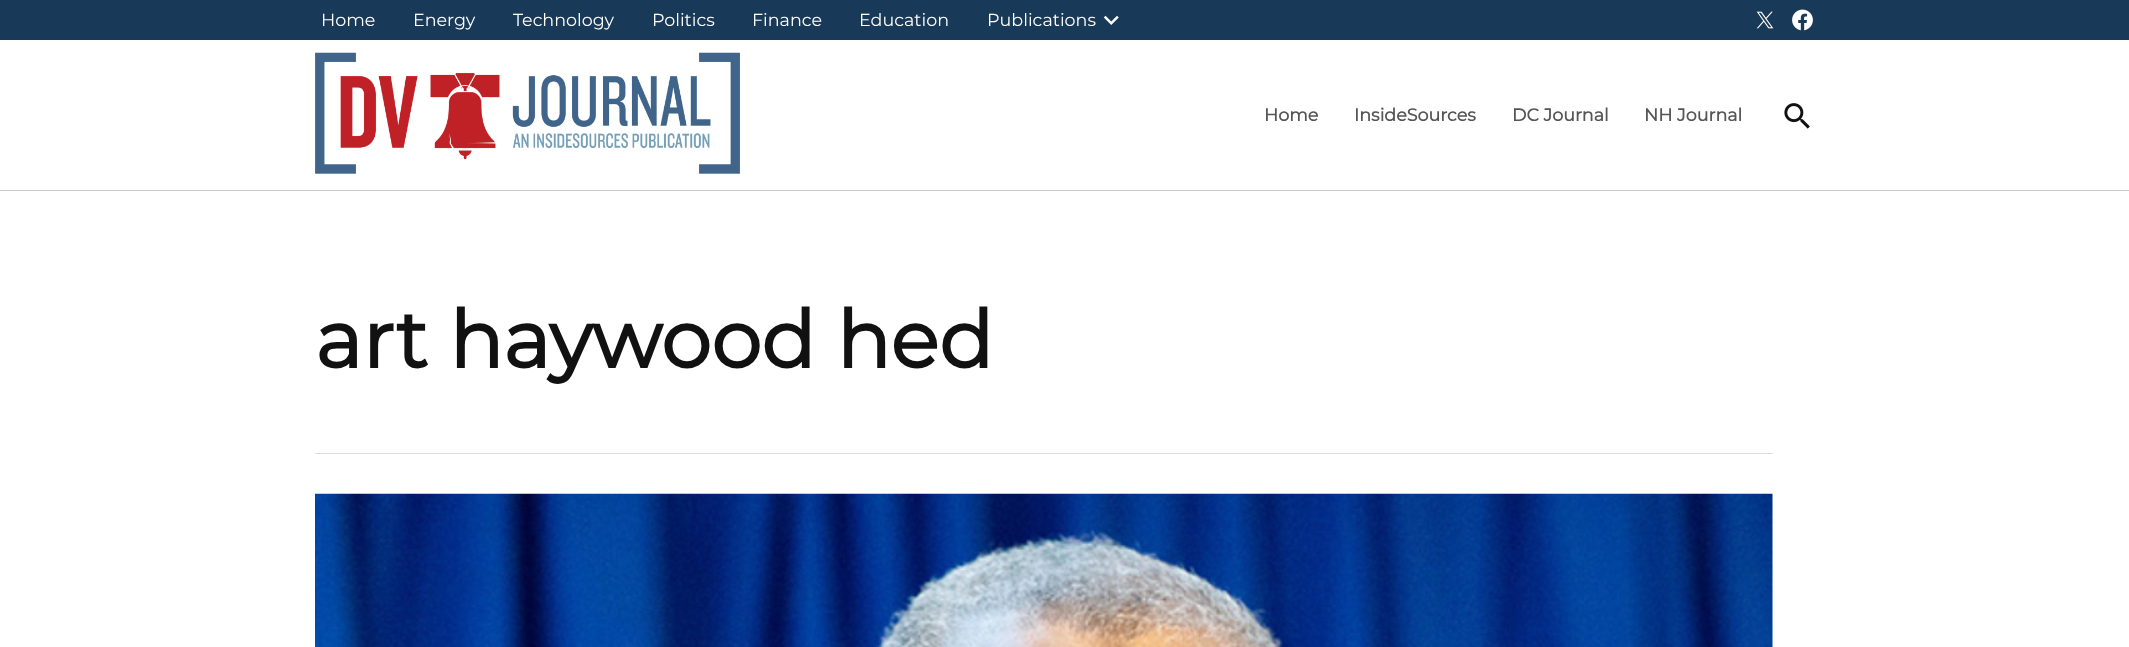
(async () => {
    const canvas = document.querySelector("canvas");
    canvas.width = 2129;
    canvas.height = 647;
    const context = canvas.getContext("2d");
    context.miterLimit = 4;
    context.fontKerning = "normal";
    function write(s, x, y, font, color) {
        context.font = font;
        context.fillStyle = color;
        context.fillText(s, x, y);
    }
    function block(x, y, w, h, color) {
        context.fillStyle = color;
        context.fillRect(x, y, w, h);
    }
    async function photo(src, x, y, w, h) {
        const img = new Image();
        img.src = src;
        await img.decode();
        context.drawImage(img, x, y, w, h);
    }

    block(0, 0, 2129, 647, "rgb(255, 255, 255)");
    block(0, 0, 2129, 40, "rgb(24, 57, 87)");
    write("Home", 321, 26, "100 17.5px Montserrat", "rgb(255, 255, 255)");
    write("Energy", 413, 26, "100 17.5px Montserrat", "rgb(255, 255, 255)");
    write("Technology", 513, 26, "100 17.5px Montserrat", "rgb(255, 255, 255)");
    write("Politics", 652, 26, "100 17.5px Montserrat", "rgb(255, 255, 255)");
    write("Finance", 752, 26, "100 17.5px Montserrat", "rgb(255, 255, 255)");
    write("Education", 859, 26, "100 17.5px Montserrat", "rgb(255, 255, 255)");
    write("Publications", 987, 26, "100 17.5px Montserrat", "rgb(255, 255, 255)");
    await photo("media/1.png", 1103, 15, 16, 10);
    await photo("media/2.png", 1756, 11, 18, 18);
    await photo("media/3.png", 1792, 9, 21, 22);
    block(0, 190, 2129, 1, "rgb(204, 204, 204)");
    await photo("media/4.png", 315, 52, 425, 122);
    write("Home", 1264, 121, "bold 17.5px Montserrat", "rgb(85, 85, 85)");
    write("InsideSources", 1354, 121, "bold 17.5px Montserrat", "rgb(85, 85, 85)");
    write("DC Journal", 1512, 121, "bold 17.5px Montserrat", "rgb(85, 85, 85)");
    write("NH Journal", 1644, 121, "bold 17.5px Montserrat", "rgb(85, 85, 85)");
    await photo("media/5.png", 1784, 103, 26, 26);
    block(315, 453, 1458, 1, "rgb(221, 221, 221)");
    write("art haywood hed", 315, 368, "bold 80px Montserrat", "rgb(17, 17, 17)");
    await photo("media/6.png", 315, 493, 1458, 154);
})();
